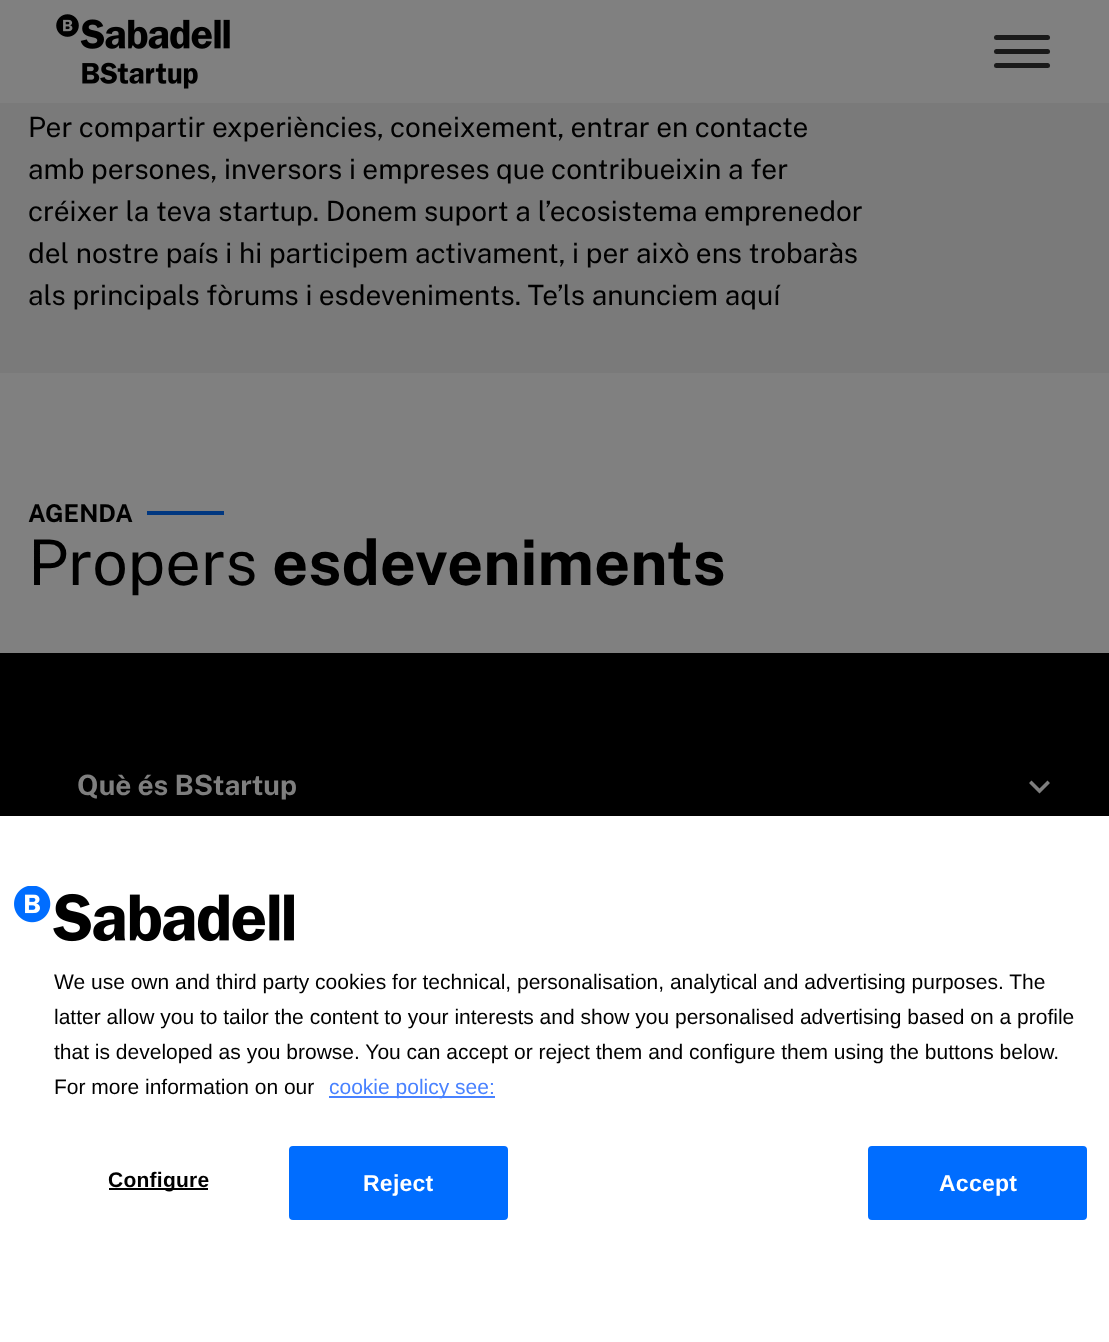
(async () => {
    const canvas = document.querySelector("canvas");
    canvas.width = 1109;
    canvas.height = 1342;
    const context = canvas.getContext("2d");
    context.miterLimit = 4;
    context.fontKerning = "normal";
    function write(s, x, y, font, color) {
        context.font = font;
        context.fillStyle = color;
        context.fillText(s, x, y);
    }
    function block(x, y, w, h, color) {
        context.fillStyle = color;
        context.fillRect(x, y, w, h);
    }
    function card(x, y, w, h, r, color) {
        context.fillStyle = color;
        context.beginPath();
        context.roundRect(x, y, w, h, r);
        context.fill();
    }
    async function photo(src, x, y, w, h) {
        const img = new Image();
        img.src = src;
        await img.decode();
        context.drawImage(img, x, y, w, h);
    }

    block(0, 0, 1109, 1342, "rgb(128, 128, 128)");
    await photo("media/1.png", 56, 14, 174, 75);
    card(994, 35, 56, 5, 2.5, "rgb(26, 26, 26)");
    card(994, 49, 56, 5, 2.5, "rgb(26, 26, 26)");
    card(994, 63, 56, 5, 2.5, "rgb(26, 26, 26)");
    block(0, 103, 1109, 270, "rgb(122, 122, 122)");
    write("Per compartir experiències, coneixement, entrar en contacte", 28, 137, "28px Public Sans", "rgb(0, 0, 0)");
    write("amb persones, inversors i empreses que contribueixin a fer", 28, 179, "28px Public Sans", "rgb(0, 0, 0)");
    write("créixer la teva startup. Donem suport a l’ecosistema emprenedor", 28, 221, "28px Public Sans", "rgb(0, 0, 0)");
    write("del nostre país i hi participem activament, i per això ens trobaràs", 28, 263, "28px Public Sans", "rgb(0, 0, 0)");
    write("als principals fòrums i esdeveniments. Te’ls anunciem aquí", 28, 305, "28px Public Sans", "rgb(0, 0, 0)");
    write("AGENDA", 28, 522, "bold 24.5px Public Sans", "rgb(0, 0, 0)");
    block(147, 511, 77, 4, "rgb(0, 55, 128)");
    write("Propers", 28, 585, "63px Public Sans", "rgb(0, 0, 0)");
    write("esdeveniments", 272, 585, "bold 63px Public Sans", "rgb(0, 0, 0)");
    block(0, 653, 1109, 163, "rgb(0, 0, 0)");
    write("Què és BStartup", 77, 795, "bold 28px Public Sans", "rgb(128, 128, 128)");
    context.beginPath();
    context.moveTo(1047.5, 780.5);
    context.lineTo(1039.5, 788.5);
    context.lineTo(1031.5, 780.5);
    context.lineTo(1029, 783);
    context.lineTo(1039.5, 793.5);
    context.lineTo(1050, 783);
    context.closePath();
    context.fill();
    context.fillStyle = "rgba(0, 0, 0, 0.2)";
    context.filter = "blur(16px)";
    context.beginPath();
    context.rect(0, 816, 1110, 526);
    context.fill();
    context.filter = "none";
    block(0, 816, 1109, 526, "rgb(255, 255, 255)");
    await photo("media/2.png", 14, 886, 280, 56);
    write("We use own and third party cookies for technical, personalisation, analytical and advertising purposes. The", 54, 989, "21px Liberation Sans", "rgb(0, 0, 0)");
    write("latter allow you to tailor the content to your interests and show you personalised advertising based on a profile", 54, 1024, "21px Liberation Sans", "rgb(0, 0, 0)");
    write("that is developed as you browse. You can accept or reject them and configure them using the buttons below.", 54, 1059, "21px Liberation Sans", "rgb(0, 0, 0)");
    write("For more information on our", 54, 1094, "21px Liberation Sans", "rgb(0, 0, 0)");
    block(329, 1096, 166, 2, "rgb(73, 130, 255)");
    write("cookie policy see:", 329, 1094, "21px Liberation Sans", "rgb(73, 130, 255)");
    block(109, 1188, 99, 2, "rgb(0, 0, 0)");
    context.letterSpacing = "0.25px";
    write("Configure", 108, 1187, "bold 21px Liberation Sans", "rgb(0, 0, 0)");
    context.fillStyle = "rgb(0, 109, 255)";
    context.beginPath();
    context.roundRect(290, 1147, 217, 72, 3);
    context.fill();
    context.strokeStyle = "rgb(0, 109, 255)";
    context.lineWidth = 2;
    context.stroke();
    write("Reject", 363, 1191, "bold 23px Liberation Sans", "rgb(255, 255, 255)");
    context.fillStyle = "rgb(0, 109, 255)";
    context.beginPath();
    context.roundRect(869, 1147, 217, 72, 3);
    context.fill();
    context.stroke();
    write("Accept", 939, 1191, "bold 23px Liberation Sans", "rgb(255, 255, 255)");
})();
